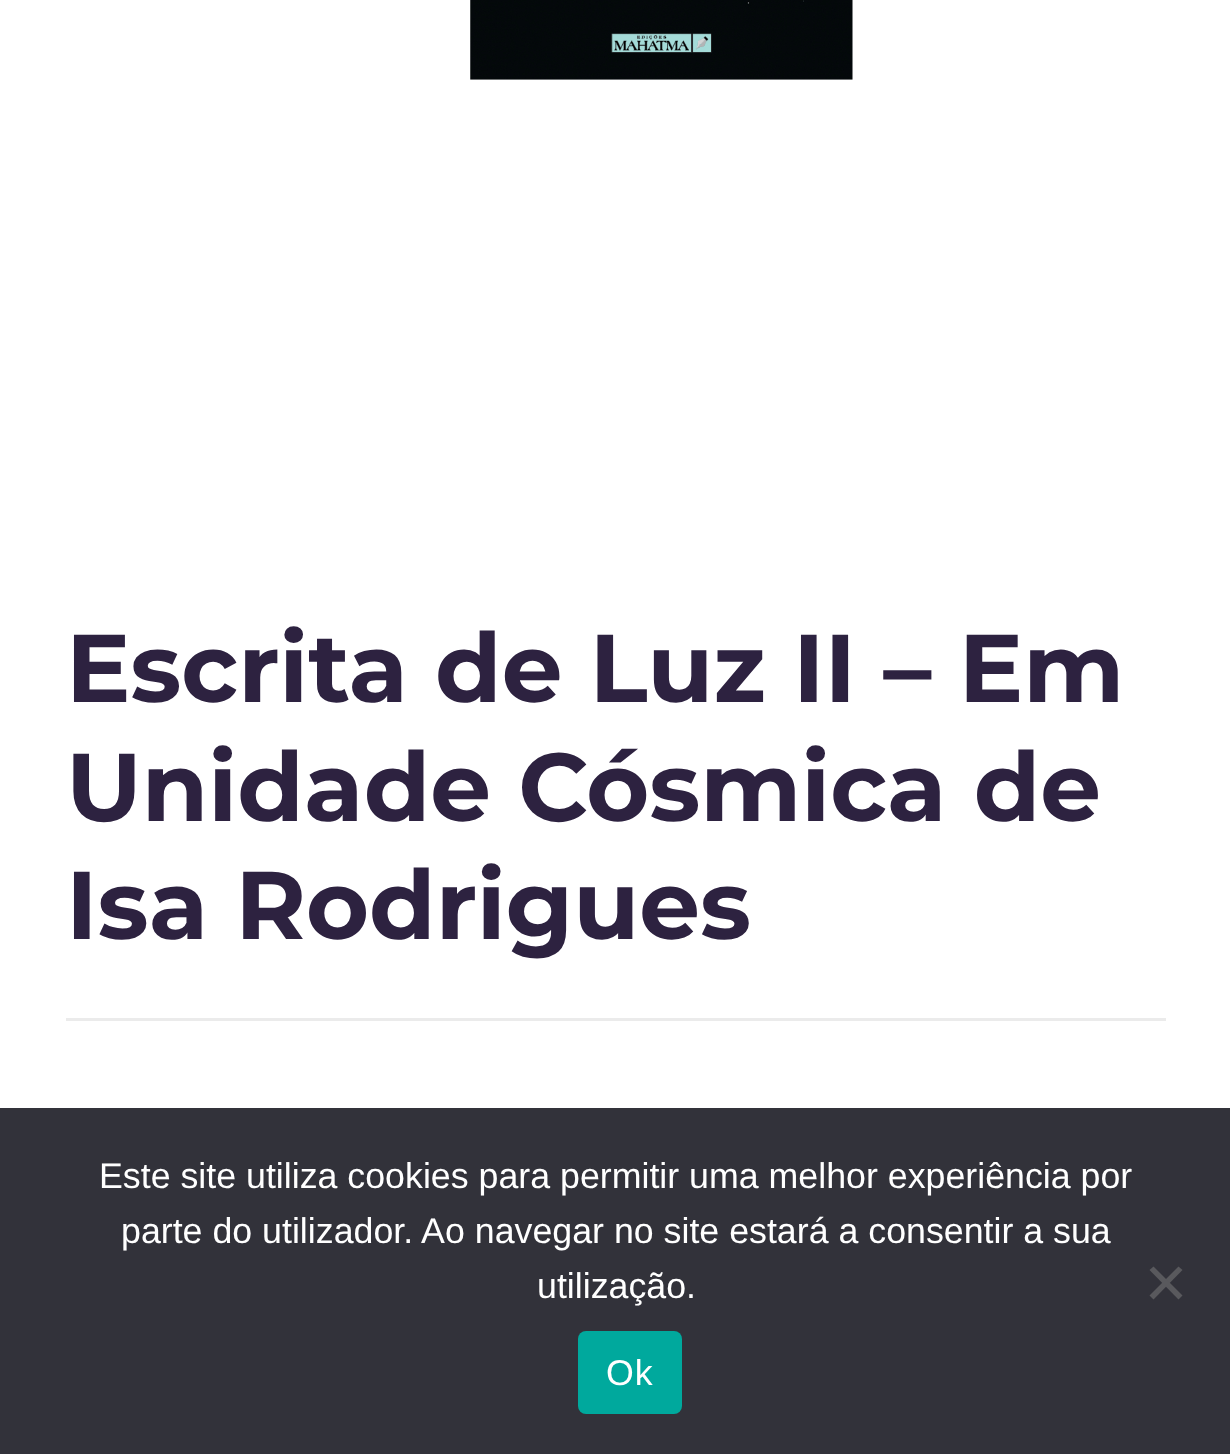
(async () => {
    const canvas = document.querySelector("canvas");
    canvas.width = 1230;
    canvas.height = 1454;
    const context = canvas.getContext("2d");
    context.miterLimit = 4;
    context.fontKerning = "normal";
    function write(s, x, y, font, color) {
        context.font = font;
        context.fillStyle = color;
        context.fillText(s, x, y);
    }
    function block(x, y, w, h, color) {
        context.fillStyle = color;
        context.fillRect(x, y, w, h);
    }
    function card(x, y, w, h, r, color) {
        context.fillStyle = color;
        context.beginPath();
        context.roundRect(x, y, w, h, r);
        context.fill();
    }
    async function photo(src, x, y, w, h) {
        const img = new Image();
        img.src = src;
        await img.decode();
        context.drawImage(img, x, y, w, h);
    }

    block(0, 0, 1230, 1454, "rgb(255, 255, 255)");
    await photo("media/1.png", 470, 0, 383, 80);
    block(66, 1018, 1100, 3, "rgb(235, 235, 235)");
    write("Escrita de Luz II – Em", 66, 702, "bold 96.25px Montserrat", "rgb(45, 34, 64)");
    write("Unidade Cósmica de", 66, 821, "bold 96.25px Montserrat", "rgb(45, 34, 64)");
    write("Isa Rodrigues", 66, 939, "bold 96.25px Montserrat", "rgb(45, 34, 64)");
    block(0, 1108, 1230, 346, "rgb(50, 50, 58)");
    write("Este site utiliza cookies para permitir uma melhor experiência por", 99, 1188, "35.75px Liberation Sans", "rgb(255, 255, 255)");
    write("parte do utilizador. Ao navegar no site estará a consentir a sua", 121, 1243, "35.75px Liberation Sans", "rgb(255, 255, 255)");
    write("utilização.", 537, 1298, "35.75px Liberation Sans", "rgb(255, 255, 255)");
    context.fillStyle = "rgb(89, 89, 93)";
    context.beginPath();
    context.moveTo(1178.5, 1266.5);
    context.lineTo(1182.5, 1270);
    context.lineTo(1153.5, 1299.5);
    context.lineTo(1149.5, 1295.5);
    context.closePath();
    context.fill();
    context.beginPath();
    context.moveTo(1149.5, 1270);
    context.lineTo(1153.5, 1266.5);
    context.lineTo(1182.5, 1295.5);
    context.lineTo(1178.5, 1299.5);
    context.closePath();
    context.fill();
    card(578, 1331, 104, 83, 8, "rgb(0, 169, 157)");
    context.letterSpacing = "1px";
    write("Ok", 606, 1385, "35.75px Liberation Sans", "rgb(255, 255, 255)");
})();
